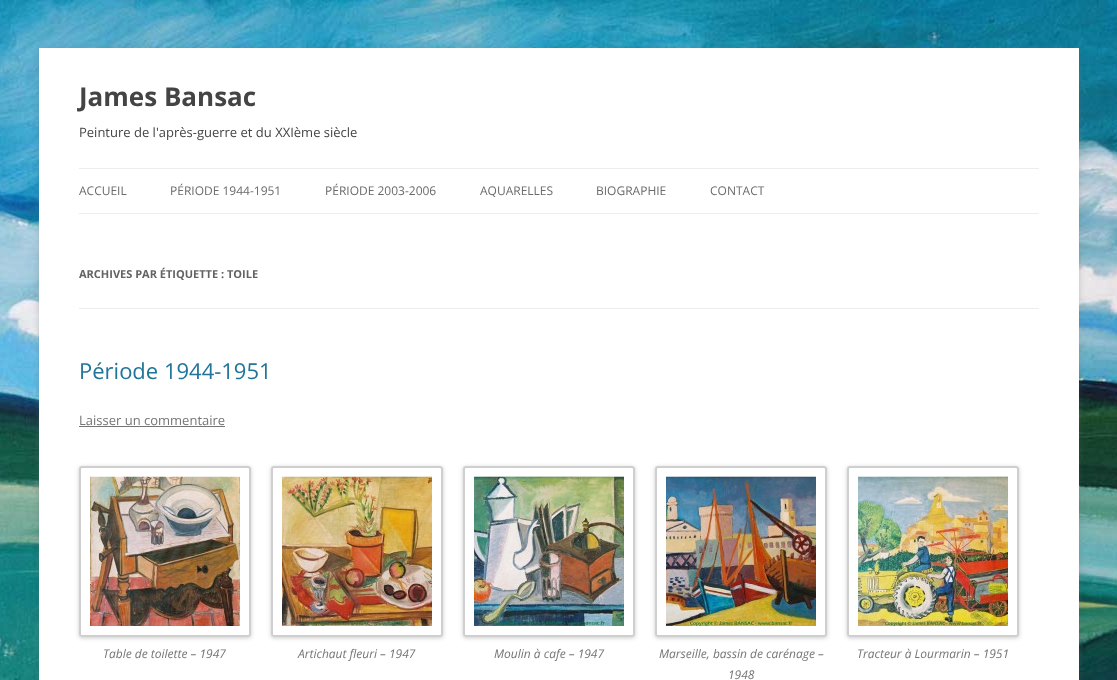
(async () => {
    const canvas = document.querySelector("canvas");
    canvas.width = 1117;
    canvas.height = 680;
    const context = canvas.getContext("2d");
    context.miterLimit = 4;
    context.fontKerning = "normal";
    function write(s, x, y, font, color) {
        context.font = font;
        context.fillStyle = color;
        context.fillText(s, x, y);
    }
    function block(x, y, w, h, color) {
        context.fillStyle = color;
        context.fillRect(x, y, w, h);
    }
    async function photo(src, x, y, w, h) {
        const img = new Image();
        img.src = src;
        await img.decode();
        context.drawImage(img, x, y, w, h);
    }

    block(0, 0, 1117, 680, "rgb(255, 255, 255)");
    await photo("media/1.png", 0, 0, 1117, 680);
    context.fillStyle = "rgba(100, 100, 100, 0.3)";
    context.filter = "blur(3px)";
    context.beginPath();
    context.rect(39, 50, 1040, 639);
    context.fill();
    context.filter = "none";
    block(39, 48, 1040, 632, "rgb(255, 255, 255)");
    write("James Bansac", 79, 106, "bold 26px Open Sans", "rgb(68, 68, 68)");
    write("Peinture de l'après-guerre et du XXIème siècle", 79, 137, "13px Open Sans", "rgb(68, 68, 68)");
    block(79, 168, 960, 1, "rgb(237, 237, 237)");
    block(79, 213, 960, 1, "rgb(237, 237, 237)");
    write("ACCUEIL", 79, 195, "12px Open Sans", "rgb(106, 106, 106)");
    write("PÉRIODE 1944-1951", 170, 195, "12px Open Sans", "rgb(106, 106, 106)");
    write("PÉRIODE 2003-2006", 325, 195, "12px Open Sans", "rgb(106, 106, 106)");
    write("AQUARELLES", 480, 195, "12px Open Sans", "rgb(106, 106, 106)");
    write("BIOGRAPHIE", 596, 195, "12px Open Sans", "rgb(106, 106, 106)");
    write("CONTACT", 710, 195, "12px Open Sans", "rgb(106, 106, 106)");
    block(79, 308, 960, 1, "rgb(237, 237, 237)");
    write("ARCHIVES PAR ÉTIQUETTE : TOILE", 79, 278, "bold 11px Open Sans", "rgb(99, 99, 99)");
    write("Période 1944-1951", 79, 379, "22px Open Sans", "rgb(33, 117, 155)");
    write("Laisser un commentaire", 79, 425, "13px Open Sans", "rgb(117, 117, 117)");
    block(79, 426, 146, 1, "rgb(117, 117, 117)");
    context.save();
    context.beginPath();
    context.moveTo(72, 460);
    context.lineTo(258, 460);
    context.lineTo(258, 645);
    context.lineTo(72, 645);
    context.closePath();
    context.moveTo(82, 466);
    context.lineTo(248, 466);
    context.bezierCurveTo(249.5, 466, 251, 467.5, 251, 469);
    context.lineTo(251, 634);
    context.bezierCurveTo(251, 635.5, 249.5, 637, 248, 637);
    context.lineTo(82, 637);
    context.bezierCurveTo(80.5, 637, 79, 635.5, 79, 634);
    context.lineTo(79, 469);
    context.bezierCurveTo(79, 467.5, 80.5, 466, 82, 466);
    context.closePath();
    context.clip("evenodd");
    context.fillStyle = "rgba(0, 0, 0, 0.2)";
    context.filter = "blur(2px)";
    context.beginPath();
    context.roundRect(79, 467, 172, 171, 3);
    context.fill();
    context.filter = "none";
    context.restore();
    context.beginPath();
    context.roundRect(80, 467, 170, 169, 2);
    context.strokeStyle = "rgb(207, 207, 207)";
    context.lineWidth = 2;
    context.stroke();
    await photo("media/2.png", 90, 476, 150, 150);
    write("Table de toilette – 1947", 103, 658, "italic 12px Open Sans", "rgb(117, 117, 117)");
    context.save();
    context.beginPath();
    context.moveTo(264, 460);
    context.lineTo(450, 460);
    context.lineTo(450, 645);
    context.lineTo(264, 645);
    context.closePath();
    context.moveTo(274, 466);
    context.lineTo(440, 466);
    context.bezierCurveTo(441.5, 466, 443, 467.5, 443, 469);
    context.lineTo(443, 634);
    context.bezierCurveTo(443, 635.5, 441.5, 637, 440, 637);
    context.lineTo(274, 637);
    context.bezierCurveTo(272.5, 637, 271, 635.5, 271, 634);
    context.lineTo(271, 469);
    context.bezierCurveTo(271, 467.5, 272.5, 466, 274, 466);
    context.closePath();
    context.clip("evenodd");
    context.fillStyle = "rgba(0, 0, 0, 0.2)";
    context.filter = "blur(2px)";
    context.beginPath();
    context.roundRect(271, 467, 172, 171, 3);
    context.fill();
    context.filter = "none";
    context.restore();
    context.beginPath();
    context.roundRect(272, 467, 170, 169, 2);
    context.stroke();
    await photo("media/3.png", 282, 476, 150, 150);
    write("Artichaut fleuri – 1947", 298, 658, "italic 12px Open Sans", "rgb(117, 117, 117)");
    context.save();
    context.beginPath();
    context.moveTo(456, 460);
    context.lineTo(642, 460);
    context.lineTo(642, 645);
    context.lineTo(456, 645);
    context.closePath();
    context.moveTo(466, 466);
    context.lineTo(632, 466);
    context.bezierCurveTo(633.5, 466, 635, 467.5, 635, 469);
    context.lineTo(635, 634);
    context.bezierCurveTo(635, 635.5, 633.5, 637, 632, 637);
    context.lineTo(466, 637);
    context.bezierCurveTo(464.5, 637, 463, 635.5, 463, 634);
    context.lineTo(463, 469);
    context.bezierCurveTo(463, 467.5, 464.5, 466, 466, 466);
    context.closePath();
    context.clip("evenodd");
    context.fillStyle = "rgba(0, 0, 0, 0.2)";
    context.filter = "blur(2px)";
    context.beginPath();
    context.roundRect(463, 467, 172, 171, 3);
    context.fill();
    context.filter = "none";
    context.restore();
    context.beginPath();
    context.roundRect(464, 467, 170, 169, 2);
    context.stroke();
    await photo("media/4.png", 474, 476, 150, 150);
    write("Moulin à cafe – 1947", 494, 658, "italic 12px Open Sans", "rgb(117, 117, 117)");
    context.save();
    context.beginPath();
    context.moveTo(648, 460);
    context.lineTo(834, 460);
    context.lineTo(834, 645);
    context.lineTo(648, 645);
    context.closePath();
    context.moveTo(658, 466);
    context.lineTo(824, 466);
    context.bezierCurveTo(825.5, 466, 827, 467.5, 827, 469);
    context.lineTo(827, 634);
    context.bezierCurveTo(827, 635.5, 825.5, 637, 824, 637);
    context.lineTo(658, 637);
    context.bezierCurveTo(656.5, 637, 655, 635.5, 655, 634);
    context.lineTo(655, 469);
    context.bezierCurveTo(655, 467.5, 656.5, 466, 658, 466);
    context.closePath();
    context.clip("evenodd");
    context.fillStyle = "rgba(0, 0, 0, 0.2)";
    context.filter = "blur(2px)";
    context.beginPath();
    context.roundRect(655, 467, 172, 171, 3);
    context.fill();
    context.filter = "none";
    context.restore();
    context.beginPath();
    context.roundRect(656, 467, 170, 169, 2);
    context.stroke();
    await photo("media/5.png", 666, 476, 150, 150);
    write("Marseille, bassin de carénage –", 659, 658, "italic 12px Open Sans", "rgb(117, 117, 117)");
    write("1948", 728, 679, "italic 12px Open Sans", "rgb(117, 117, 117)");
    context.save();
    context.beginPath();
    context.moveTo(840, 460);
    context.lineTo(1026, 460);
    context.lineTo(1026, 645);
    context.lineTo(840, 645);
    context.closePath();
    context.moveTo(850, 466);
    context.lineTo(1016, 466);
    context.bezierCurveTo(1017.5, 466, 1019, 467.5, 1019, 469);
    context.lineTo(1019, 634);
    context.bezierCurveTo(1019, 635.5, 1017.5, 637, 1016, 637);
    context.lineTo(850, 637);
    context.bezierCurveTo(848.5, 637, 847, 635.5, 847, 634);
    context.lineTo(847, 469);
    context.bezierCurveTo(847, 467.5, 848.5, 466, 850, 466);
    context.closePath();
    context.clip("evenodd");
    context.fillStyle = "rgba(0, 0, 0, 0.2)";
    context.filter = "blur(2px)";
    context.beginPath();
    context.roundRect(847, 467, 172, 171, 3);
    context.fill();
    context.filter = "none";
    context.restore();
    context.beginPath();
    context.roundRect(848, 467, 170, 169, 2);
    context.stroke();
    await photo("media/6.png", 858, 476, 150, 150);
    write("Tracteur à Lourmarin – 1951", 857, 658, "italic 12px Open Sans", "rgb(117, 117, 117)");
})();
